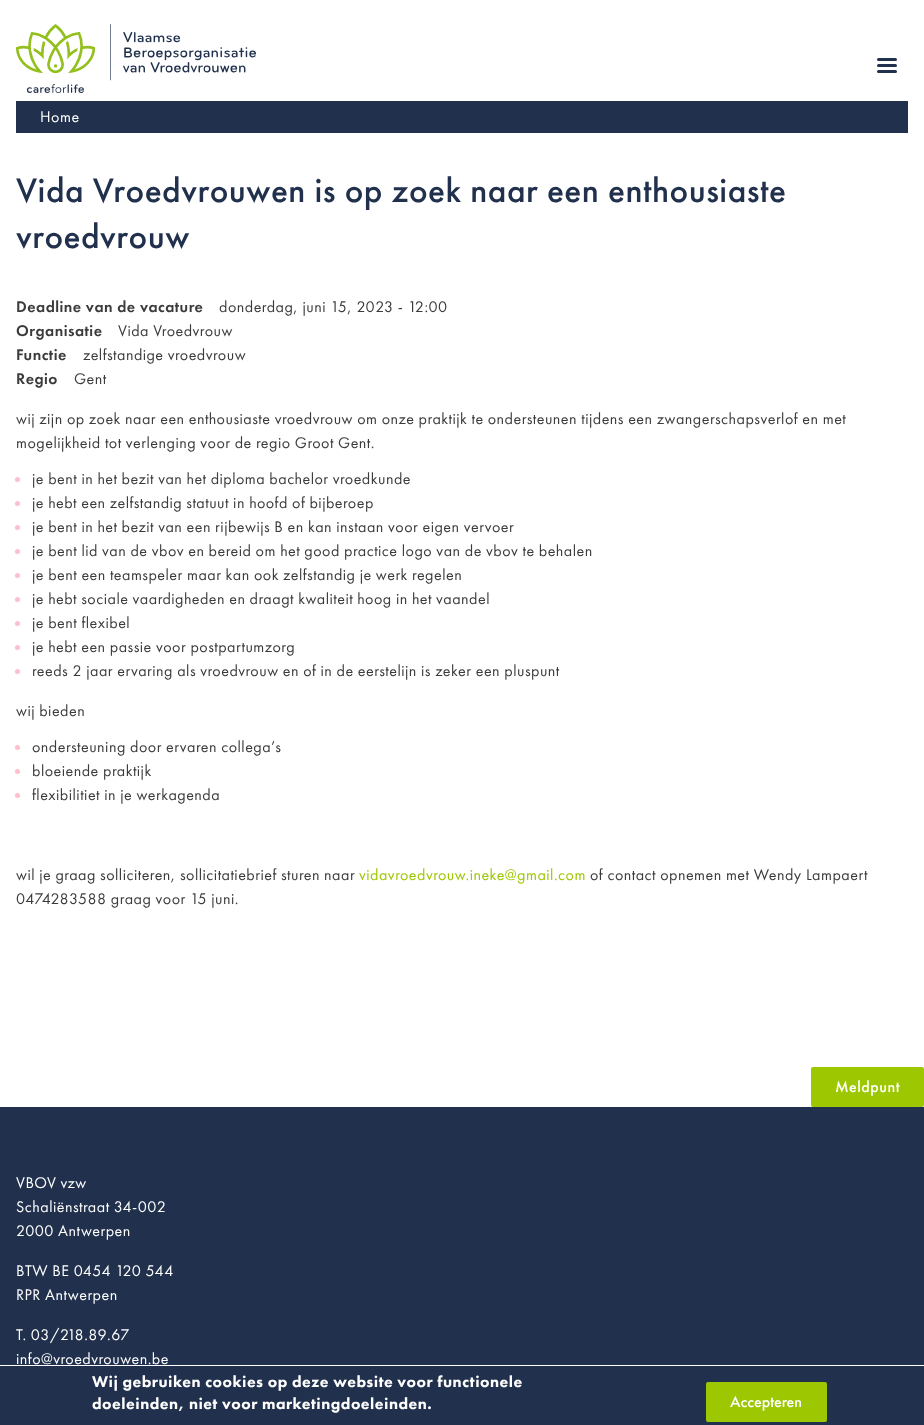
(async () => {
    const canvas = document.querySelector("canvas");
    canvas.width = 924;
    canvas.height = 1425;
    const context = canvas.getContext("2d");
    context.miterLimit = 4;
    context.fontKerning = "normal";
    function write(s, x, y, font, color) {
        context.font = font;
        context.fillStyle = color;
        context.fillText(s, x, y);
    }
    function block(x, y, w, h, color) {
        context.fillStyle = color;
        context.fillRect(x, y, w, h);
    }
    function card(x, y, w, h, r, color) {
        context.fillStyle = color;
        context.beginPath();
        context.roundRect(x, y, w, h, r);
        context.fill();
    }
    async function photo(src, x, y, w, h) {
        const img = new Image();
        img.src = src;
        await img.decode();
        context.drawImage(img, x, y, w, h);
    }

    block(0, 0, 924, 1425, "rgb(255, 255, 255)");
    await photo("media/1.png", 16, 24, 240, 69);
    card(877, 58, 20, 3, 1.5, "rgb(33, 49, 77)");
    card(877, 64, 20, 3, 1.5, "rgb(33, 49, 77)");
    card(877, 70, 20, 3, 1.5, "rgb(33, 49, 77)");
    block(16, 101, 892, 32, "rgb(33, 49, 77)");
    context.letterSpacing = "0.48px";
    write("Home", 40, 122, "16px Futura PT", "rgb(255, 255, 255)");
    write("Vida Vroedvrouwen is op zoek naar een enthousiaste", 16, 202, "500 35.2px 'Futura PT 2'", "rgb(33, 49, 77)");
    write("vroedvrouw", 16, 248, "500 35.2px 'Futura PT 2'", "rgb(33, 49, 77)");
    write("Deadline van de vacature", 16, 312, "500 16px Futura PT", "rgb(59, 59, 59)");
    write("donderdag, juni 15, 2023 - 12:00", 219, 312, "16px Futura PT", "rgb(59, 59, 59)");
    write("Organisatie", 16, 336, "500 16px Futura PT", "rgb(59, 59, 59)");
    write("Vida Vroedvrouw", 118, 336, "16px Futura PT", "rgb(59, 59, 59)");
    write("Functie", 16, 360, "500 16px Futura PT", "rgb(59, 59, 59)");
    write("zelfstandige vroedvrouw", 83, 360, "16px Futura PT", "rgb(59, 59, 59)");
    write("Regio", 16, 384, "500 16px Futura PT", "rgb(59, 59, 59)");
    write("Gent", 74, 384, "16px Futura PT", "rgb(59, 59, 59)");
    write("wij zijn op zoek naar een enthousiaste vroedvrouw om onze praktijk te ondersteunen tijdens een zwangerschapsverlof en met", 16, 424, "16px Futura PT", "rgb(59, 59, 59)");
    write("mogelijkheid tot verlenging voor de regio Groot Gent.", 16, 448, "16px Futura PT", "rgb(59, 59, 59)");
    context.fillStyle = "rgb(255, 190, 204)";
    context.beginPath();
    context.arc(17.5, 479.5, 2.5, 0, Math.PI * 2);
    context.fill();
    write("je bent in het bezit van het diploma bachelor vroedkunde", 32, 484, "16px Futura PT", "rgb(59, 59, 59)");
    context.fillStyle = "rgb(255, 190, 204)";
    context.beginPath();
    context.arc(17.5, 503.5, 2.5, 0, Math.PI * 2);
    context.fill();
    write("je hebt een zelfstandig statuut in hoofd of bijberoep", 32, 508, "16px Futura PT", "rgb(59, 59, 59)");
    context.fillStyle = "rgb(255, 190, 204)";
    context.beginPath();
    context.arc(17.5, 527.5, 2.5, 0, Math.PI * 2);
    context.fill();
    write("je bent in het bezit van een rijbewijs B en kan instaan voor eigen vervoer", 32, 532, "16px Futura PT", "rgb(59, 59, 59)");
    context.fillStyle = "rgb(255, 190, 204)";
    context.beginPath();
    context.arc(17.5, 551.5, 2.5, 0, Math.PI * 2);
    context.fill();
    write("je bent lid van de vbov en bereid om het good practice logo van de vbov te behalen", 32, 556, "16px Futura PT", "rgb(59, 59, 59)");
    context.fillStyle = "rgb(255, 190, 204)";
    context.beginPath();
    context.arc(17.5, 575.5, 2.5, 0, Math.PI * 2);
    context.fill();
    write("je bent een teamspeler maar kan ook zelfstandig je werk regelen", 32, 580, "16px Futura PT", "rgb(59, 59, 59)");
    context.fillStyle = "rgb(255, 190, 204)";
    context.beginPath();
    context.arc(17.5, 599.5, 2.5, 0, Math.PI * 2);
    context.fill();
    write("je hebt sociale vaardigheden en draagt kwaliteit hoog in het vaandel", 32, 604, "16px Futura PT", "rgb(59, 59, 59)");
    context.fillStyle = "rgb(255, 190, 204)";
    context.beginPath();
    context.arc(17.5, 623.5, 2.5, 0, Math.PI * 2);
    context.fill();
    write("je bent flexibel", 32, 628, "16px Futura PT", "rgb(59, 59, 59)");
    context.fillStyle = "rgb(255, 190, 204)";
    context.beginPath();
    context.arc(17.5, 647.5, 2.5, 0, Math.PI * 2);
    context.fill();
    write("je hebt een passie voor postpartumzorg", 32, 652, "16px Futura PT", "rgb(59, 59, 59)");
    context.fillStyle = "rgb(255, 190, 204)";
    context.beginPath();
    context.arc(17.5, 671.5, 2.5, 0, Math.PI * 2);
    context.fill();
    write("reeds 2 jaar ervaring als vroedvrouw en of in de eerstelijn is zeker een pluspunt", 32, 676, "16px Futura PT", "rgb(59, 59, 59)");
    write("wij bieden", 16, 716, "16px Futura PT", "rgb(59, 59, 59)");
    context.fillStyle = "rgb(255, 190, 204)";
    context.beginPath();
    context.arc(17.5, 747.5, 2.5, 0, Math.PI * 2);
    context.fill();
    write("ondersteuning door ervaren collega’s", 32, 752, "16px Futura PT", "rgb(59, 59, 59)");
    context.fillStyle = "rgb(255, 190, 204)";
    context.beginPath();
    context.arc(17.5, 771.5, 2.5, 0, Math.PI * 2);
    context.fill();
    write("bloeiende praktijk", 32, 776, "16px Futura PT", "rgb(59, 59, 59)");
    context.fillStyle = "rgb(255, 190, 204)";
    context.beginPath();
    context.arc(17.5, 795.5, 2.5, 0, Math.PI * 2);
    context.fill();
    write("flexibilitiet in je werkagenda", 32, 800, "16px Futura PT", "rgb(59, 59, 59)");
    write("wil je graag solliciteren, sollicitatiebrief sturen naar", 16, 880, "16px Futura PT", "rgb(59, 59, 59)");
    write("vidavroedvrouw.ineke@gmail.com", 359, 880, "16px Futura PT", "rgb(157, 199, 0)");
    write("of contact opnemen met Wendy Lampaert", 590, 880, "16px Futura PT", "rgb(59, 59, 59)");
    write("0474283588 graag voor 15 juni.", 16, 904, "16px Futura PT", "rgb(59, 59, 59)");
    card(811, 1067, 113, 40, 2, "rgb(157, 199, 0)");
    write("Meldpunt", 835, 1092, "500 16px 'Futura PT 2'", "rgb(255, 255, 255)");
    block(0, 1107, 924, 258, "rgb(33, 49, 77)");
    write("VBOV vzw", 16, 1188, "16px Futura PT", "rgb(255, 255, 255)");
    write("Schaliënstraat 34-002", 16, 1212, "16px Futura PT", "rgb(255, 255, 255)");
    write("2000 Antwerpen", 16, 1236, "16px Futura PT", "rgb(255, 255, 255)");
    write("BTW BE 0454 120 544", 16, 1276, "16px Futura PT", "rgb(255, 255, 255)");
    write("RPR Antwerpen", 16, 1300, "16px Futura PT", "rgb(255, 255, 255)");
    write("T. 03/218.89.67", 16, 1340, "16px Futura PT", "rgb(255, 255, 255)");
    write("info@vroedvrouwen.be", 16, 1364, "16px Futura PT", "rgb(255, 255, 255)");
    block(0, 1366, 924, 59, "rgb(33, 49, 77)");
    write("Wij gebruiken cookies op deze website voor functionele", 92, 1387, "900 16px Futura PT", "rgb(255, 255, 255)");
    write("doeleinden, niet voor marketingdoeleinden.", 92, 1409, "900 16px Futura PT", "rgb(255, 255, 255)");
    card(706, 1382, 121, 40, 2, "rgb(157, 199, 0)");
    context.letterSpacing = "0px";
    write("Accepteren", 730, 1407, "500 16px 'Futura PT 2'", "rgb(255, 255, 255)");
})();
